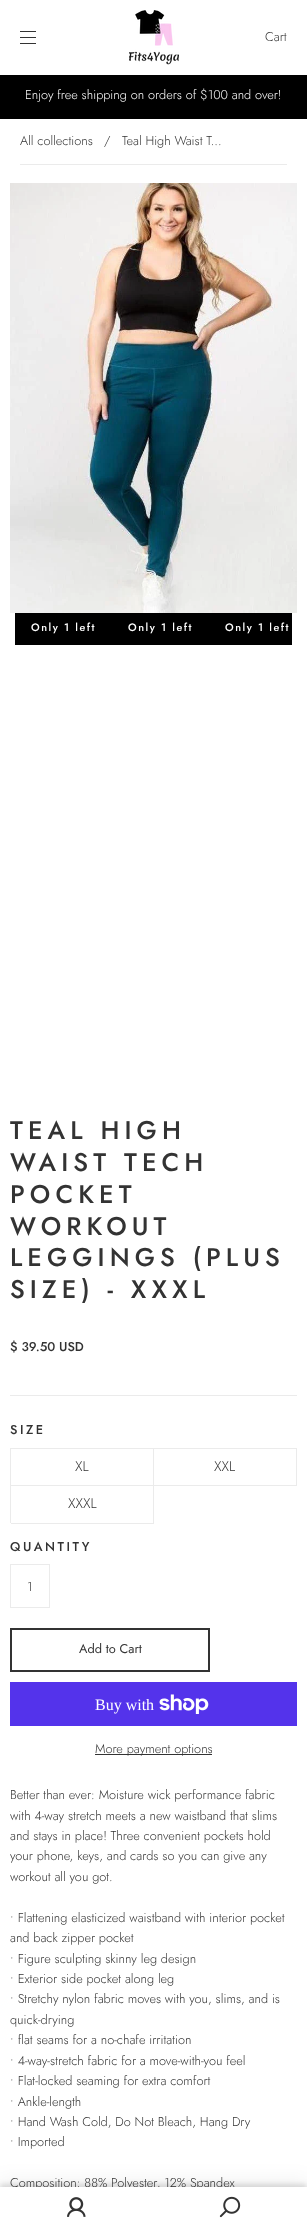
(async () => {
    const canvas = document.querySelector("canvas");
    canvas.width = 307;
    canvas.height = 2227;
    const context = canvas.getContext("2d");
    context.miterLimit = 4;
    context.fontKerning = "normal";
    function write(s, x, y, font, color) {
        context.font = font;
        context.fillStyle = color;
        context.fillText(s, x, y);
    }
    function block(x, y, w, h, color) {
        context.fillStyle = color;
        context.fillRect(x, y, w, h);
    }
    async function photo(src, x, y, w, h) {
        const img = new Image();
        img.src = src;
        await img.decode();
        context.drawImage(img, x, y, w, h);
    }

    block(0, 0, 307, 2227, "rgb(255, 255, 255)");
    block(20, 31, 16, 1, "rgb(51, 51, 51)");
    block(20, 37, 16, 1, "rgb(51, 51, 51)");
    block(20, 43, 16, 1, "rgb(51, 51, 51)");
    await photo("media/1.png", 129, 10, 50, 55);
    write("Cart", 265, 41, "300 12.75px Jost", "rgb(51, 51, 51)");
    block(0, 75, 307, 44, "rgb(0, 0, 0)");
    write("Enjoy free shipping on orders of $100 and over!", 25, 99, "300 12.75px Jost", "rgb(255, 255, 255)");
    block(20, 164, 267, 1, "rgb(235, 235, 235)");
    write("All collections", 20, 145, "300 12.75px Jost", "rgb(51, 51, 51)");
    write("/", 104, 145, "300 12.75px Jost", "rgb(51, 51, 51)");
    write("Teal High Waist T...", 122, 145, "300 12.75px Jost", "rgb(51, 51, 51)");
    await photo("media/2.png", 10, 183, 287, 430);
    block(15, 613, 277, 32, "rgb(0, 0, 0)");
    context.letterSpacing = "1.5px";
    write("Only 1 left", 31, 631, "500 10.75px Jost", "rgb(255, 255, 255)");
    write("Only 1 left", 128, 631, "500 10.75px Jost", "rgb(255, 255, 255)");
    write("Only 1 left", 225, 631, "500 10.75px Jost", "rgb(255, 255, 255)");
    block(10, 1395, 287, 1, "rgb(235, 235, 235)");
    context.letterSpacing = "5.1px";
    write("TEAL HIGH", 10, 1139, "500 25.5px Jost", "rgb(51, 51, 51)");
    write("WAIST TECH", 10, 1171, "500 25.5px Jost", "rgb(51, 51, 51)");
    write("POCKET", 10, 1203, "500 25.5px Jost", "rgb(51, 51, 51)");
    write("WORKOUT", 10, 1235, "500 25.5px Jost", "rgb(51, 51, 51)");
    write("LEGGINGS (PLUS", 10, 1266, "500 25.5px Jost", "rgb(51, 51, 51)");
    write("SIZE) - XXXL", 10, 1298, "500 25.5px Jost", "rgb(51, 51, 51)");
    context.letterSpacing = "0px";
    write("$ 39.50 USD", 10, 1351, "500 12.75px Jost", "rgb(51, 51, 51)");
    context.letterSpacing = "2.5px";
    write("SIZE", 10, 1434, "500 12.75px Jost", "rgb(51, 51, 51)");
    block(10, 1448, 1, 75, "rgb(235, 235, 235)");
    block(11, 1448, 286, 1, "rgb(235, 235, 235)");
    block(153, 1448, 1, 38, "rgb(235, 235, 235)");
    block(11, 1485, 143, 1, "rgb(235, 235, 235)");
    context.letterSpacing = "0px";
    write("XL", 75, 1471, "300 14px Jost", "rgb(51, 51, 51)");
    block(296, 1448, 1, 38, "rgb(235, 235, 235)");
    block(154, 1485, 143, 1, "rgb(235, 235, 235)");
    write("XXL", 214, 1471, "300 14px Jost", "rgb(51, 51, 51)");
    block(153, 1485, 1, 39, "rgb(235, 235, 235)");
    block(11, 1523, 143, 1, "rgb(235, 235, 235)");
    write("XXXL", 68, 1508, "300 14px Jost", "rgb(51, 51, 51)");
    context.letterSpacing = "2.5px";
    write("QUANTITY", 10, 1551, "500 12.75px Jost", "rgb(51, 51, 51)");
    context.strokeStyle = "rgb(235, 235, 235)";
    context.strokeRect(10.5, 1564.5, 39, 43);
    context.letterSpacing = "0px";
    write("1", 27, 1591, "300 12.75px Jost", "rgb(51, 51, 51)");
    context.strokeStyle = "rgb(51, 51, 51)";
    context.lineWidth = 2;
    context.strokeRect(11, 1629, 198, 42);
    write("Add to Cart", 79, 1653, "12.75px Jost", "rgb(51, 51, 51)");
    block(10, 1682, 287, 44, "rgb(84, 51, 235)");
    write("Buy with", 95, 1710, "16px Liberation Serif", "rgb(255, 255, 255)");
    await photo("media/3.png", 159, 1694, 50, 20);
    block(95, 1754, 117, 1, "rgb(51, 51, 51)");
    write("More payment options", 95, 1753, "300 12.75px Jost", "rgb(51, 51, 51)");
    write("Better than ever: Moisture wick performance fabric", 10, 1799, "300 12.75px Jost", "rgb(51, 51, 51)");
    write("with 4-way stretch meets a new waistband that slims", 10, 1820, "300 12.75px Jost", "rgb(51, 51, 51)");
    write("and stays in place! Three convenient pockets hold", 10, 1840, "300 12.75px Jost", "rgb(51, 51, 51)");
    write("your phone, keys, and cards so you can give any", 10, 1860, "300 12.75px Jost", "rgb(51, 51, 51)");
    write("workout all you got.", 10, 1881, "300 12.75px Jost", "rgb(51, 51, 51)");
    write("• Flattening elasticized waistband with interior pocket", 10, 1922, "300 12.75px Jost", "rgb(51, 51, 51)");
    write("and back zipper pocket", 10, 1942, "300 12.75px Jost", "rgb(51, 51, 51)");
    write("• Figure sculpting skinny leg design", 10, 1963, "300 12.75px Jost", "rgb(51, 51, 51)");
    write("• Exterior side pocket along leg", 10, 1983, "300 12.75px Jost", "rgb(51, 51, 51)");
    write("• Stretchy nylon fabric moves with you, slims, and is", 10, 2003, "300 12.75px Jost", "rgb(51, 51, 51)");
    write("quick-drying", 10, 2024, "300 12.75px Jost", "rgb(51, 51, 51)");
    write("• flat seams for a no-chafe irritation", 10, 2044, "300 12.75px Jost", "rgb(51, 51, 51)");
    write("• 4-way-stretch fabric for a move-with-you feel", 10, 2065, "300 12.75px Jost", "rgb(51, 51, 51)");
    write("• Flat-locked seaming for extra comfort", 10, 2085, "300 12.75px Jost", "rgb(51, 51, 51)");
    write("• Ankle-length", 10, 2106, "300 12.75px Jost", "rgb(51, 51, 51)");
    write("• Hand Wash Cold, Do Not Bleach, Hang Dry", 10, 2126, "300 12.75px Jost", "rgb(51, 51, 51)");
    write("• Imported", 10, 2146, "300 12.75px Jost", "rgb(51, 51, 51)");
    write("Composition: 88% Polyester, 12% Spandex", 10, 2187, "300 12.75px Jost", "rgb(51, 51, 51)");
    context.fillStyle = "rgba(0, 0, 0, 0.06)";
    context.filter = "blur(10px)";
    context.beginPath();
    context.rect(0, 2181, 307, 40);
    context.fill();
    context.filter = "none";
    context.fillStyle = "rgba(0, 0, 0, 0.12)";
    context.filter = "blur(2.5px)";
    context.beginPath();
    context.rect(0, 2184, 307, 40);
    context.fill();
    context.filter = "none";
    block(0, 2187, 307, 40, "rgb(255, 255, 255)");
    await photo("media/4.png", 67, 2197, 19, 20);
    await photo("media/5.png", 219, 2196, 22, 22);
})();
